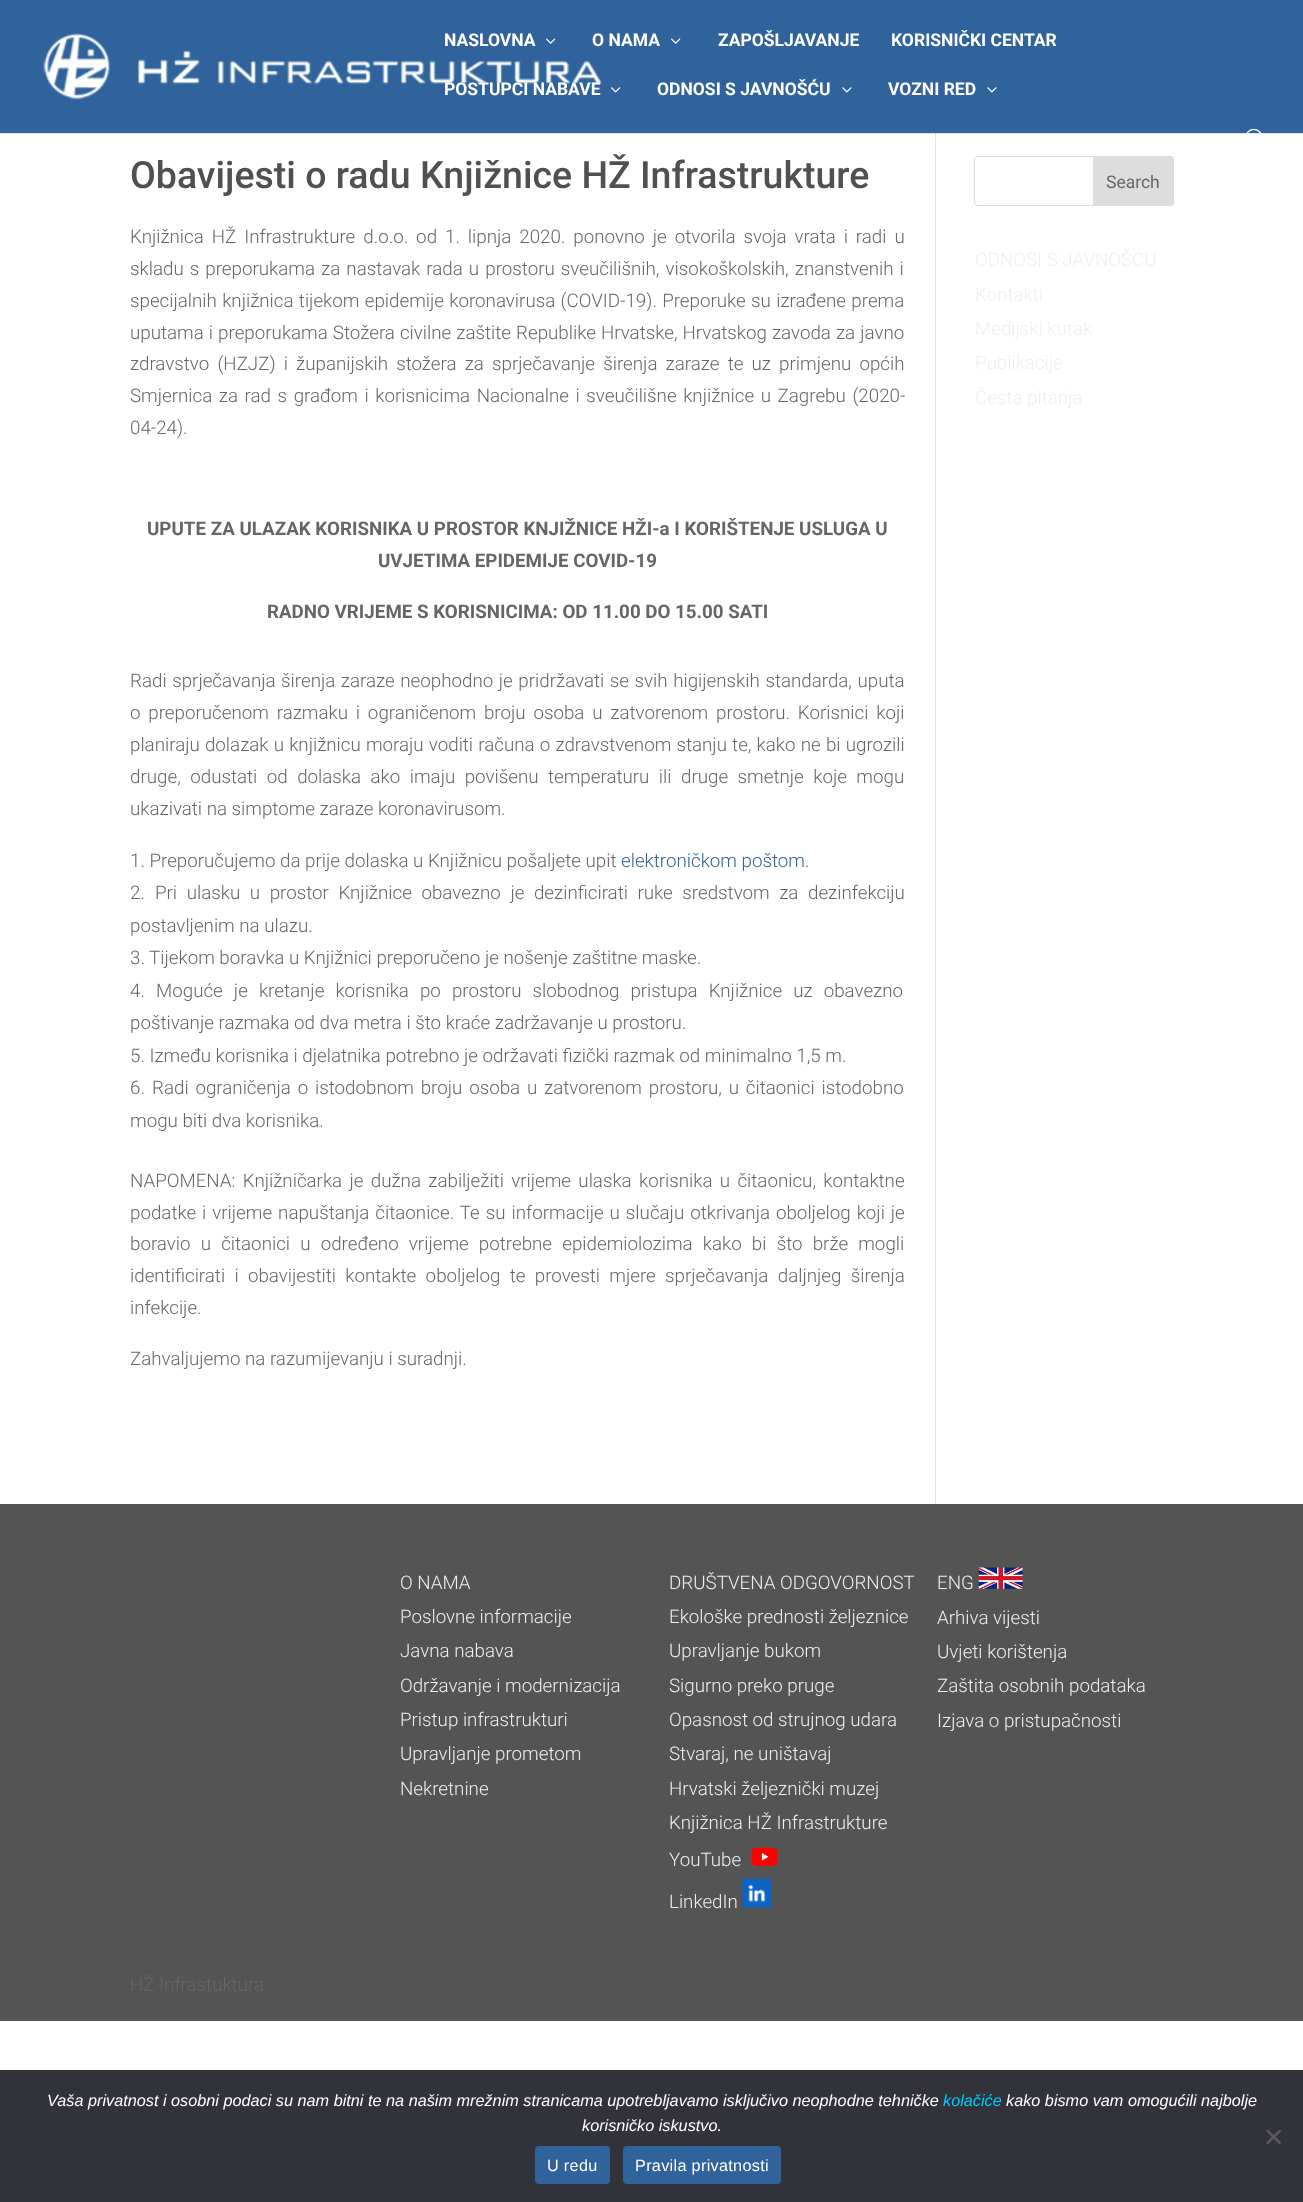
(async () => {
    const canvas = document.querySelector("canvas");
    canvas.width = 1303;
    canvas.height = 2202;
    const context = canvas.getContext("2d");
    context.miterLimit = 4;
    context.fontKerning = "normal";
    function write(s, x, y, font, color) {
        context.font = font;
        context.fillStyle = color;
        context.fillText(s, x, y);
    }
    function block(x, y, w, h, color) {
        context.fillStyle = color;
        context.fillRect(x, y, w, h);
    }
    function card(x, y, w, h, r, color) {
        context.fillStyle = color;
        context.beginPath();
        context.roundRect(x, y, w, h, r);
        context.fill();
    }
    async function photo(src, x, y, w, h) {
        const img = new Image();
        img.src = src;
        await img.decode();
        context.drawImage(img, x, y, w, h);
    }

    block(0, 0, 1303, 2202, "rgb(255, 255, 255)");
    block(935, 133, 1, 1371, "rgb(226, 226, 226)");
    context.fillStyle = "rgba(0, 0, 0, 0.1)";
    context.beginPath();
    context.moveTo(0, 132);
    context.lineTo(0, 134);
    context.lineTo(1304, 134);
    context.lineTo(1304, 1);
    context.lineTo(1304, 132);
    context.closePath();
    context.fill();
    block(0, 0, 1303, 133, "rgb(48, 99, 155)");
    await photo("media/1.png", 43, 33, 559, 67);
    write("NASLOVNA", 444, 46, "bold 17.5px Roboto", "rgb(255, 255, 255)");
    await photo("media/2.png", 546, 38, 10, 6);
    write("O NAMA", 592, 46, "bold 17.5px Roboto", "rgb(255, 255, 255)");
    await photo("media/2.png", 671, 38, 10, 6);
    write("ZAPOŠLJAVANJE", 718, 46, "bold 17.5px Roboto", "rgb(255, 255, 255)");
    write("KORISNIČKI CENTAR", 891, 46, "bold 17.5px Roboto", "rgb(255, 255, 255)");
    write("POSTUPCI NABAVE", 444, 95, "bold 17.5px Roboto", "rgb(255, 255, 255)");
    await photo("media/3.png", 611, 87, 10, 6);
    write("ODNOSI S JAVNOŠĆU", 657, 95, "bold 17.5px Roboto", "rgb(255, 255, 255)");
    await photo("media/4.png", 842, 87, 10, 6);
    write("VOZNI RED", 888, 95, "bold 17.5px Roboto", "rgb(255, 255, 255)");
    await photo("media/4.png", 987, 87, 10, 6);
    await photo("media/5.png", 1246, 128, 16, 6);
    write("Obavijesti o radu Knjižnice HŽ Infrastrukture", 130, 188, "500 37.5px Roboto", "rgb(80, 80, 80)");
    context.wordSpacing = "3.4px";
    write("Knjižnica HŽ Infrastrukture d.o.o. od 1. lipnja 2020. ponovno je otvorila svoja vrata i radi u", 130, 243, "300 18.75px Roboto", "rgb(102, 102, 102)");
    context.wordSpacing = "1.5px";
    write("skladu s preporukama za nastavak rada u prostoru sveučilišnih, visokoškolskih, znanstvenih i", 130, 275, "300 18.75px Roboto", "rgb(102, 102, 102)");
    context.wordSpacing = "0.75px";
    write("specijalnih knjižnica tijekom epidemije koronavirusa (COVID-19). Preporuke su izrađene prema", 130, 307, "300 18.75px Roboto", "rgb(102, 102, 102)");
    context.wordSpacing = "0.5px";
    write("uputama i preporukama Stožera civilne zaštite Republike Hrvatske, Hrvatskog zavoda za javno", 130, 339, "300 18.75px Roboto", "rgb(102, 102, 102)");
    context.wordSpacing = "3.6px";
    write("zdravstvo (HZJZ) i županijskih stožera za sprječavanje širenja zaraze te uz primjenu općih", 130, 370, "300 18.75px Roboto", "rgb(102, 102, 102)");
    context.wordSpacing = "2px";
    write("Smjernica za rad s građom i korisnicima Nacionalne i sveučilišne knjižnice u Zagrebu (2020-", 130, 402, "300 18.75px Roboto", "rgb(102, 102, 102)");
    context.wordSpacing = "0px";
    write("04-24).", 130, 434, "300 18.75px Roboto", "rgb(102, 102, 102)");
    write("UPUTE ZA ULAZAK KORISNIKA U PROSTOR KNJIŽNICE HŽI-a I KORIŠTENJE USLUGA U", 147, 535, "bold 18.75px Roboto", "rgb(102, 102, 102)");
    write("UVJETIMA EPIDEMIJE COVID-19", 378, 567, "bold 18.75px Roboto", "rgb(102, 102, 102)");
    write("RADNO VRIJEME S KORISNICIMA: OD 11.00 DO 15.00 SATI", 267, 618, "bold 18.75px Roboto", "rgb(102, 102, 102)");
    context.wordSpacing = "1px";
    write("Radi sprječavanja širenja zaraze neophodno je pridržavati se svih higijenskih standarda, uputa", 130, 687, "300 18.75px Roboto", "rgb(102, 102, 102)");
    context.wordSpacing = "3.25px";
    write("o preporučenom razmaku i ograničenom broju osoba u zatvorenom prostoru. Korisnici koji", 130, 719, "300 18.75px Roboto", "rgb(102, 102, 102)");
    context.wordSpacing = "0.6px";
    write("planiraju dolazak u knjižnicu moraju voditi računa o zdravstvenom stanju te, kako ne bi ugrozili", 130, 751, "300 18.75px Roboto", "rgb(102, 102, 102)");
    context.wordSpacing = "4.9px";
    write("druge, odustati od dolaska ako imaju povišenu temperaturu ili druge smetnje koje mogu", 130, 783, "300 18.75px Roboto", "rgb(102, 102, 102)");
    context.wordSpacing = "0px";
    write("ukazivati na simptome zaraze koronavirusom.", 130, 815, "300 18.75px Roboto", "rgb(102, 102, 102)");
    write("1. Preporučujemo da prije dolaska u Knjižnicu pošaljete upit", 130, 867, "300 18.75px Roboto", "rgb(102, 102, 102)");
    write("elektroničkom poštom", 621, 867, "300 18.75px Roboto", "rgb(48, 99, 155)");
    write(".", 805, 867, "300 18.75px Roboto", "rgb(102, 102, 102)");
    write("2.", 130, 899, "300 18.75px Roboto", "rgb(102, 102, 102)");
    context.wordSpacing = "5px";
    write("Pri ulasku u prostor Knjižnice obavezno je dezinficirati ruke sredstvom za dezinfekciju", 155, 899, "300 18.75px Roboto", "rgb(102, 102, 102)");
    context.wordSpacing = "0px";
    write("postavljenim na ulazu.", 130, 932, "300 18.75px Roboto", "rgb(102, 102, 102)");
    write("3. Tijekom boravka u Knjižnici preporučeno je nošenje zaštitne maske.", 130, 964, "300 18.75px Roboto", "rgb(102, 102, 102)");
    write("4.", 130, 997, "300 18.75px Roboto", "rgb(102, 102, 102)");
    context.wordSpacing = "6.5px";
    write("Moguće je kretanje korisnika po prostoru slobodnog pristupa Knjižnice uz obavezno", 156, 997, "300 18.75px Roboto", "rgb(102, 102, 102)");
    context.wordSpacing = "0px";
    write("poštivanje razmaka od dva metra i što kraće zadržavanje u prostoru.", 130, 1029, "300 18.75px Roboto", "rgb(102, 102, 102)");
    write("5. Između korisnika i djelatnika potrebno je održavati fizički razmak od minimalno 1,5 m.", 130, 1062, "300 18.75px Roboto", "rgb(102, 102, 102)");
    write("6.", 130, 1094, "300 18.75px Roboto", "rgb(102, 102, 102)");
    context.wordSpacing = "2.25px";
    write("Radi ograničenja o istodobnom broju osoba u zatvorenom prostoru, u čitaonici istodobno", 152, 1094, "300 18.75px Roboto", "rgb(102, 102, 102)");
    context.wordSpacing = "0px";
    write("mogu biti dva korisnika.", 130, 1127, "300 18.75px Roboto", "rgb(102, 102, 102)");
    context.wordSpacing = "2.75px";
    write("NAPOMENA: Knjižničarka je dužna zabilježiti vrijeme ulaska korisnika u čitaonicu, kontaktne", 130, 1187, "300 18.75px Roboto", "rgb(102, 102, 102)");
    context.wordSpacing = "1.4px";
    write("podatke i vrijeme napuštanja čitaonice. Te su informacije u slučaju otkrivanja oboljelog koji je", 130, 1219, "300 18.75px Roboto", "rgb(102, 102, 102)");
    context.wordSpacing = "5.6px";
    write("boravio u čitaonici u određeno vrijeme potrebne epidemiolozima kako bi što brže mogli", 130, 1250, "300 18.75px Roboto", "rgb(102, 102, 102)");
    context.wordSpacing = "4.75px";
    write("identificirati i obavijestiti kontakte oboljelog te provesti mjere sprječavanja daljnjeg širenja", 130, 1282, "300 18.75px Roboto", "rgb(102, 102, 102)");
    context.wordSpacing = "0px";
    write("infekcije.", 130, 1314, "300 18.75px Roboto", "rgb(102, 102, 102)");
    write("Zahvaljujemo na razumijevanju i suradnji.", 130, 1365, "300 18.75px Roboto", "rgb(102, 102, 102)");
    context.beginPath();
    context.roundRect(974.5, 156.5, 199, 49, 3.5);
    context.strokeStyle = "rgb(221, 221, 221)";
    context.stroke();
    context.fillStyle = "rgb(221, 221, 221)";
    context.beginPath();
    context.roundRect(1093.5, 156.5, 80, 49, [0, 3.5, 3.5, 0]);
    context.fill();
    context.stroke();
    write("Search", 1106, 188, "17.5px Roboto", "rgb(102, 102, 102)");
    write("ODNOSI S JAVNOŠĆU", 975, 266, "300 18.75px Roboto", "rgb(238, 238, 238)");
    write("Kontakti", 975, 301, "300 18.75px Roboto", "rgb(238, 238, 238)");
    write("Medijski kutak", 975, 335, "300 18.75px Roboto", "rgb(238, 238, 238)");
    write("Publikacije", 975, 369, "300 18.75px Roboto", "rgb(238, 238, 238)");
    write("Česta pitanja", 975, 404, "300 18.75px Roboto", "rgb(238, 238, 238)");
    block(0, 1504, 1303, 517, "rgb(84, 84, 84)");
    write("O NAMA", 400, 1589, "300 18.75px Roboto", "rgb(238, 238, 238)");
    write("Poslovne informacije", 400, 1623, "300 18.75px Roboto", "rgb(238, 238, 238)");
    write("Javna nabava", 400, 1657, "300 18.75px Roboto", "rgb(238, 238, 238)");
    write("Održavanje i modernizacija", 400, 1692, "300 18.75px Roboto", "rgb(238, 238, 238)");
    write("Pristup infrastrukturi", 400, 1726, "300 18.75px Roboto", "rgb(238, 238, 238)");
    write("Upravljanje prometom", 400, 1760, "300 18.75px Roboto", "rgb(238, 238, 238)");
    write("Nekretnine", 400, 1795, "300 18.75px Roboto", "rgb(238, 238, 238)");
    write("DRUŠTVENA ODGOVORNOST", 669, 1589, "300 18.75px Roboto", "rgb(238, 238, 238)");
    write("Ekološke prednosti željeznice", 669, 1623, "300 18.75px Roboto", "rgb(238, 238, 238)");
    write("Upravljanje bukom", 669, 1657, "300 18.75px Roboto", "rgb(238, 238, 238)");
    write("Sigurno preko pruge", 669, 1692, "300 18.75px Roboto", "rgb(238, 238, 238)");
    write("Opasnost od strujnog udara", 669, 1726, "300 18.75px Roboto", "rgb(238, 238, 238)");
    write("Stvaraj, ne uništavaj", 669, 1760, "300 18.75px Roboto", "rgb(238, 238, 238)");
    write("Hrvatski željeznički muzej", 669, 1795, "300 18.75px Roboto", "rgb(238, 238, 238)");
    write("Knjižnica HŽ Infrastrukture", 669, 1829, "300 18.75px Roboto", "rgb(238, 238, 238)");
    write("YouTube", 669, 1866, "300 18.75px Roboto", "rgb(238, 238, 238)");
    await photo("media/6.png", 751, 1847, 27, 20);
    write("LinkedIn", 669, 1908, "300 18.75px Roboto", "rgb(238, 238, 238)");
    await photo("media/7.png", 742, 1878, 30, 30);
    write("ENG", 937, 1589, "300 18.75px Roboto", "rgb(238, 238, 238)");
    await photo("media/8.png", 978, 1567, 45, 22);
    write("Arhiva vijesti", 937, 1624, "300 18.75px Roboto", "rgb(238, 238, 238)");
    write("Uvjeti korištenja", 937, 1658, "300 18.75px Roboto", "rgb(238, 238, 238)");
    write("Zaštita osobnih podataka", 937, 1692, "300 18.75px Roboto", "rgb(238, 238, 238)");
    write("Izjava o pristupačnosti", 937, 1727, "300 18.75px Roboto", "rgb(238, 238, 238)");
    write("HŽ Infrastuktura", 130, 1991, "300 18.75px Roboto", "rgb(102, 102, 102)");
    block(0, 2070, 1303, 132, "rgb(50, 50, 58)");
    write("Vaša privatnost i osobni podaci su nam bitni te na našim mrežnim stranicama upotrebljavamo isključivo neophodne tehničke", 47, 2106, "italic 16.25px Liberation Sans", "rgb(255, 255, 255)");
    write("kolačiće", 943, 2106, "italic 16.25px Liberation Sans", "rgb(0, 204, 255)");
    write("kako bismo vam omogućili najbolje", 1006, 2106, "italic 16.25px Liberation Sans", "rgb(255, 255, 255)");
    write("korisničko iskustvo.", 582, 2131, "italic 16.25px Liberation Sans", "rgb(255, 255, 255)");
    context.fillStyle = "rgb(89, 89, 93)";
    context.beginPath();
    context.moveTo(1279.5, 2129.5);
    context.lineTo(1281.5, 2131);
    context.lineTo(1268, 2144.5);
    context.lineTo(1266, 2142.5);
    context.closePath();
    context.fill();
    context.beginPath();
    context.moveTo(1266, 2131);
    context.lineTo(1268, 2129.5);
    context.lineTo(1281.5, 2142.5);
    context.lineTo(1279.5, 2144.5);
    context.closePath();
    context.fill();
    card(535, 2146, 75, 38, 4, "rgb(48, 99, 155)");
    context.letterSpacing = "0.3px";
    write("U redu", 547, 2171, "16.25px Liberation Sans", "rgb(255, 255, 255)");
    card(623, 2146, 158, 38, 4, "rgb(48, 99, 155)");
    write("Pravila privatnosti", 635, 2171, "16.25px Liberation Sans", "rgb(255, 255, 255)");
})();
